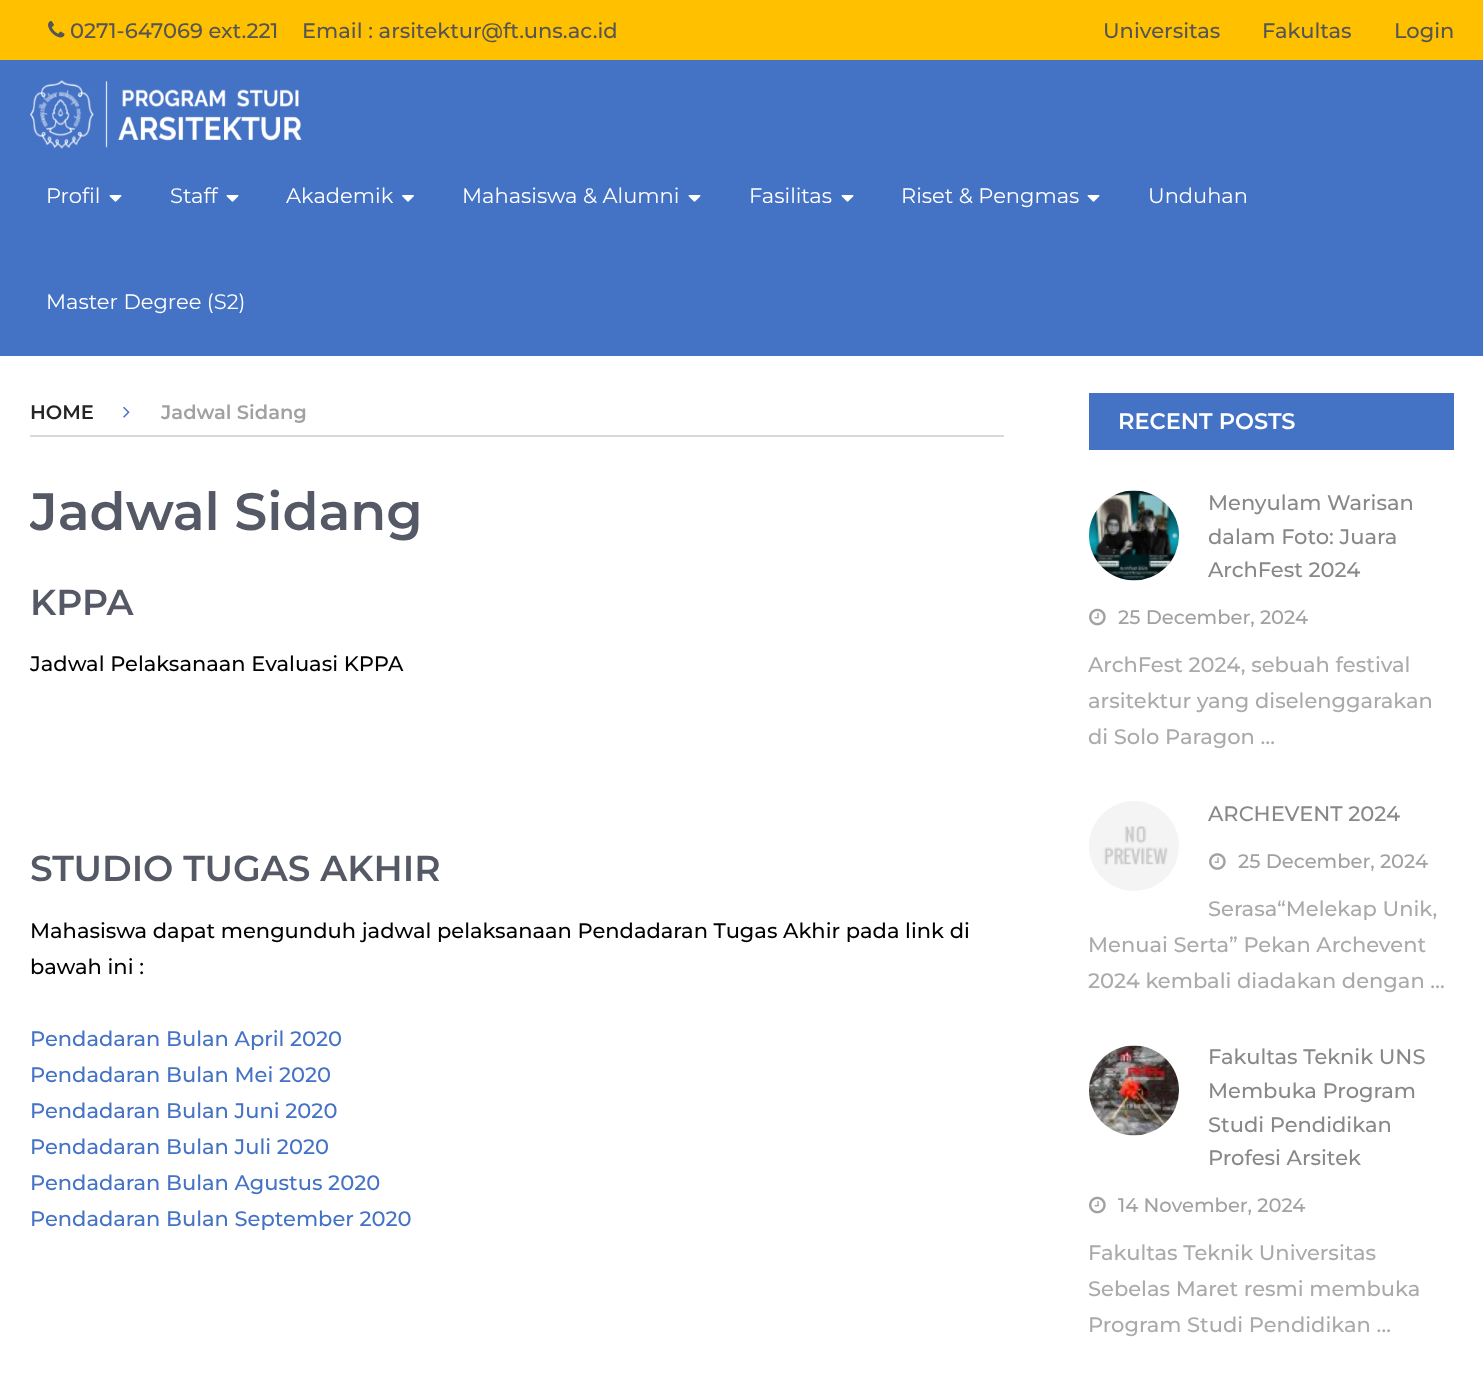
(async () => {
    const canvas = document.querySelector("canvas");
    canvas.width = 1483;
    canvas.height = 1373;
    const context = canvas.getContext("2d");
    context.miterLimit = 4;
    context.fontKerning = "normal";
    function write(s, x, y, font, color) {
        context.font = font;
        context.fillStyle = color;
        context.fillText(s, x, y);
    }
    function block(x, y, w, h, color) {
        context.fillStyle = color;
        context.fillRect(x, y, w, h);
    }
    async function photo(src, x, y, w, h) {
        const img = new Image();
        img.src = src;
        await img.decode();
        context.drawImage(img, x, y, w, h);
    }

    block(0, 0, 1483, 1373, "rgb(255, 255, 255)");
    block(0, 0, 1483, 60, "rgb(255, 192, 0)");
    await photo("media/1.png", 48, 21, 17, 17);
    write("0271-647069 ext.221", 70, 38, "500 21px Montserrat", "rgb(85, 85, 85)");
    write("Email : arsitektur@ft.uns.ac.id", 302, 38, "500 21px Montserrat", "rgb(85, 85, 85)");
    write("Universitas", 1103, 38, "500 21px Montserrat", "rgb(85, 85, 85)");
    write("Fakultas", 1262, 38, "500 21px Montserrat", "rgb(85, 85, 85)");
    write("Login", 1394, 38, "500 21px Montserrat", "rgb(85, 85, 85)");
    block(0, 60, 1483, 296, "rgb(68, 114, 196)");
    await photo("media/2.png", 30, 80, 272, 69);
    write("Profil", 46, 203, "21px Montserrat", "rgb(255, 255, 255)");
    await photo("media/3.png", 109, 195, 13, 7);
    write("Staff", 170, 203, "21px Montserrat", "rgb(255, 255, 255)");
    await photo("media/3.png", 226, 195, 13, 7);
    write("Akademik", 286, 203, "21px Montserrat", "rgb(255, 255, 255)");
    await photo("media/4.png", 402, 195, 12, 7);
    write("Mahasiswa & Alumni", 462, 203, "21px Montserrat", "rgb(255, 255, 255)");
    await photo("media/3.png", 688, 195, 13, 7);
    write("Fasilitas", 749, 203, "21px Montserrat", "rgb(255, 255, 255)");
    await photo("media/3.png", 841, 195, 13, 7);
    write("Riset & Pengmas", 901, 203, "21px Montserrat", "rgb(255, 255, 255)");
    await photo("media/3.png", 1087, 195, 13, 7);
    write("Unduhan", 1148, 203, "21px Montserrat", "rgb(255, 255, 255)");
    write("Master Degree (S2)", 46, 309, "21px Montserrat", "rgb(255, 255, 255)");
    block(30, 435, 974, 2, "rgb(217, 217, 217)");
    write("HOME", 30, 419, "600 19.5px Montserrat", "rgb(37, 37, 37)");
    await photo("media/5.png", 123, 406, 7, 12);
    write("Jadwal Sidang", 161, 419, "600 19.5px Montserrat", "rgb(161, 161, 161)");
    context.save();
    context.beginPath();
    context.rect(30, 474, 974, 74);
    context.clip();
    write("Jadwal Sidang", 30, 530, "600 52.5px Montserrat", "rgb(85, 89, 102)");
    context.restore();
    write("KPPA", 30, 615, "600 36px Montserrat", "rgb(85, 89, 102)");
    write("Jadwal Pelaksanaan Evaluasi KPPA", 30, 671, "500 21px Montserrat", "rgb(0, 0, 0)");
    write("STUDIO TUGAS AKHIR", 30, 881, "600 36px Montserrat", "rgb(85, 89, 102)");
    write("Mahasiswa dapat mengunduh jadwal pelaksanaan Pendadaran Tugas Akhir pada link di", 30, 938, "500 21px Montserrat", "rgb(0, 0, 0)");
    write("bawah ini :", 30, 974, "500 21px Montserrat", "rgb(0, 0, 0)");
    write("Pendadaran Bulan April 2020", 30, 1046, "500 21px Montserrat", "rgb(68, 114, 196)");
    write("Pendadaran Bulan Mei 2020", 30, 1082, "500 21px Montserrat", "rgb(68, 114, 196)");
    write("Pendadaran Bulan Juni 2020", 30, 1118, "500 21px Montserrat", "rgb(68, 114, 196)");
    write("Pendadaran Bulan Juli 2020", 30, 1154, "500 21px Montserrat", "rgb(68, 114, 196)");
    write("Pendadaran Bulan Agustus 2020", 30, 1190, "500 21px Montserrat", "rgb(68, 114, 196)");
    write("Pendadaran Bulan September 2020", 30, 1226, "500 21px Montserrat", "rgb(68, 114, 196)");
    block(1089, 393, 365, 57, "rgb(68, 114, 196)");
    write("RECENT POSTS", 1118, 429, "600 22.5px Montserrat", "rgb(255, 255, 255)");
    await photo("media/6.png", 1089, 490, 90, 91);
    write("Menyulam Warisan", 1208, 510, "500 21px Montserrat", "rgb(136, 136, 136)");
    write("dalam Foto: Juara", 1208, 544, "500 21px Montserrat", "rgb(136, 136, 136)");
    write("ArchFest 2024", 1208, 577, "500 21px Montserrat", "rgb(136, 136, 136)");
    await photo("media/7.png", 1089, 608, 17, 18);
    write("25 December, 2024", 1118, 624, "500 19.5px Montserrat", "rgb(161, 161, 161)");
    write("ArchFest 2024, sebuah festival", 1088, 672, "500 21px Montserrat", "rgb(170, 170, 170)");
    write("arsitektur yang diselenggarakan", 1088, 708, "500 21px Montserrat", "rgb(170, 170, 170)");
    write("di Solo Paragon …", 1088, 744, "500 21px Montserrat", "rgb(170, 170, 170)");
    await photo("media/8.png", 1089, 801, 90, 90);
    write("ARCHEVENT 2024", 1208, 821, "500 21px Montserrat", "rgb(136, 136, 136)");
    await photo("media/9.png", 1209, 853, 17, 17);
    write("25 December, 2024", 1238, 868, "500 19.5px Montserrat", "rgb(161, 161, 161)");
    write("Serasa“Melekap Unik,", 1208, 916, "500 21px Montserrat", "rgb(170, 170, 170)");
    write("Menuai Serta” Pekan Archevent", 1088, 952, "500 21px Montserrat", "rgb(170, 170, 170)");
    write("2024 kembali diadakan dengan …", 1088, 988, "500 21px Montserrat", "rgb(170, 170, 170)");
    await photo("media/10.png", 1089, 1045, 90, 91);
    write("Fakultas Teknik UNS", 1208, 1064, "500 21px Montserrat", "rgb(136, 136, 136)");
    write("Membuka Program", 1208, 1098, "500 21px Montserrat", "rgb(136, 136, 136)");
    write("Studi Pendidikan", 1208, 1132, "500 21px Montserrat", "rgb(136, 136, 136)");
    write("Profesi Arsitek", 1208, 1165, "500 21px Montserrat", "rgb(136, 136, 136)");
    await photo("media/7.png", 1089, 1196, 17, 18);
    write("14 November, 2024", 1118, 1212, "500 19.5px Montserrat", "rgb(161, 161, 161)");
    write("Fakultas Teknik Universitas", 1088, 1260, "500 21px Montserrat", "rgb(170, 170, 170)");
    write("Sebelas Maret resmi membuka", 1088, 1296, "500 21px Montserrat", "rgb(170, 170, 170)");
    write("Program Studi Pendidikan …", 1088, 1332, "500 21px Montserrat", "rgb(170, 170, 170)");
})();
